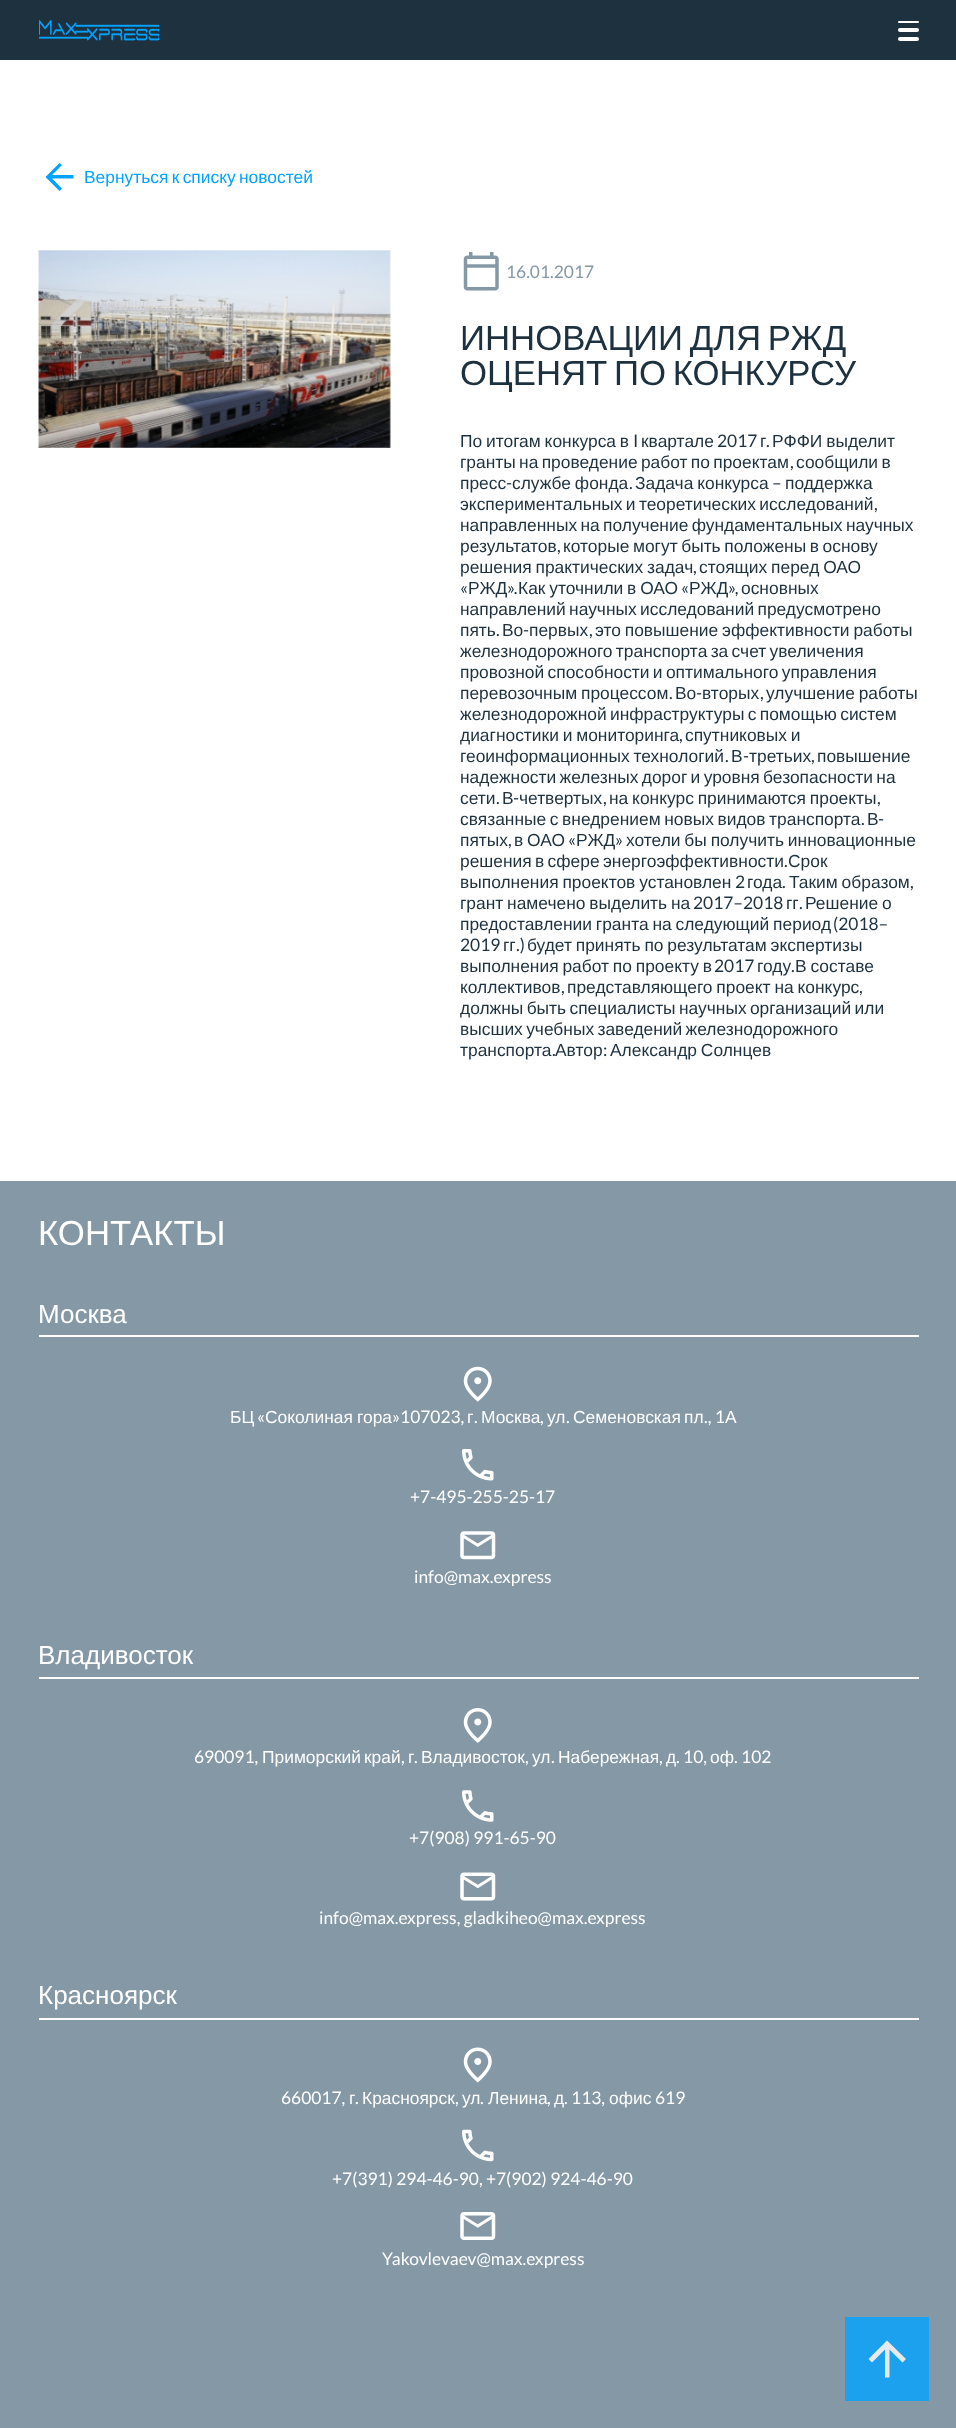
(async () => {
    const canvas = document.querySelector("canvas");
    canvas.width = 956;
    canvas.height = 2428;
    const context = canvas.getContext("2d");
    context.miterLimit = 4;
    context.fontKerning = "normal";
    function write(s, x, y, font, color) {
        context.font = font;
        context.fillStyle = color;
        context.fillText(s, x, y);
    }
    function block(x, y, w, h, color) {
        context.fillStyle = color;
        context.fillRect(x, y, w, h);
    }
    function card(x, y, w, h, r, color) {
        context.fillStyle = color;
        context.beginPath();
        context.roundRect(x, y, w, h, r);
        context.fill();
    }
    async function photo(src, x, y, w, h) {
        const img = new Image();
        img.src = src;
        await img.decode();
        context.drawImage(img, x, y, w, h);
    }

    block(0, 0, 956, 2428, "rgb(255, 255, 255)");
    block(0, 0, 956, 60, "rgb(30, 49, 63)");
    await photo("media/1.png", 39, 20, 120, 21);
    card(898, 21, 21, 2, 1, "rgb(255, 255, 255)");
    card(898, 28, 21, 4, 2, "rgb(255, 255, 255)");
    card(898, 37, 21, 4, 2, "rgb(255, 255, 255)");
    context.fillStyle = "rgb(0, 163, 255)";
    context.beginPath();
    context.moveTo(73.5, 175);
    context.lineTo(52, 175);
    context.lineTo(62, 165);
    context.lineTo(59.5, 163);
    context.lineTo(45.5, 177);
    context.lineTo(59.5, 191);
    context.lineTo(62, 188.5);
    context.lineTo(52, 178.5);
    context.lineTo(73.5, 178.5);
    context.closePath();
    context.fill();
    context.wordSpacing = "-1.5px";
    write("Вернуться к списку новостей", 84, 183, "17.4px Liberation Sans", "rgb(0, 163, 255)");
    await photo("media/2.png", 38, 250, 353, 198);
    await photo("media/3.png", 463, 252, 36, 39);
    context.wordSpacing = "0px";
    write("16.01.2017", 506, 278, "17.4px Lato", "rgb(133, 152, 165)");
    context.wordSpacing = "-3px";
    write("ИННОВАЦИИ ДЛЯ РЖД", 460, 350, "34.75px Liberation Sans", "rgb(30, 49, 63)");
    write("ОЦЕНЯТ ПО КОНКУРСУ", 460, 385, "34.75px Liberation Sans", "rgb(30, 49, 63)");
    context.wordSpacing = "-1px";
    write("По итогам конкурса в", 460, 447, "17.4px Liberation Sans", "rgb(30, 49, 63)");
    context.wordSpacing = "0px";
    write("I", 633, 447, "17.4px Lato", "rgb(30, 49, 63)");
    write("квартале", 641, 447, "17.4px Liberation Sans", "rgb(30, 49, 63)");
    write("2017", 717, 447, "17.4px Lato", "rgb(30, 49, 63)");
    write("г", 760, 447, "17.4px Liberation Sans", "rgb(30, 49, 63)");
    write(".", 766, 447, "17.4px Lato", "rgb(30, 49, 63)");
    context.wordSpacing = "-1px";
    write("РФФИ выделит", 772, 447, "17.4px Liberation Sans", "rgb(30, 49, 63)");
    context.wordSpacing = "-1.5px";
    write("гранты на проведение работ по проектам", 460, 468, "17.4px Liberation Sans", "rgb(30, 49, 63)");
    context.wordSpacing = "0px";
    write(",", 790, 468, "17.4px Lato", "rgb(30, 49, 63)");
    context.wordSpacing = "-1.5px";
    write("сообщили в", 796, 468, "17.4px Liberation Sans", "rgb(30, 49, 63)");
    context.wordSpacing = "0px";
    write("пресс", 460, 489, "17.4px Liberation Sans", "rgb(30, 49, 63)");
    write("-", 506, 489, "17.4px Lato", "rgb(30, 49, 63)");
    context.wordSpacing = "-1px";
    write("службе фонда", 512, 489, "17.4px Liberation Sans", "rgb(30, 49, 63)");
    write("Задача конкурса", 635, 489, "17.4px Liberation Sans", "rgb(30, 49, 63)");
    context.wordSpacing = "0px";
    write("–", 772, 489, "17.4px Lato", "rgb(30, 49, 63)");
    write("поддержка", 785, 489, "17.4px Liberation Sans", "rgb(30, 49, 63)");
    write(".", 629, 489, "17.4px Lato", "rgb(30, 49, 63)");
    context.wordSpacing = "-1.5px";
    write("экспериментальных и теоретических исследований", 460, 510, "17.4px Liberation Sans", "rgb(30, 49, 63)");
    context.wordSpacing = "0px";
    write(",", 874, 510, "17.4px Lato", "rgb(30, 49, 63)");
    context.wordSpacing = "-1.5px";
    write("направленных на получение фундаментальных научных", 460, 531, "17.4px Liberation Sans", "rgb(30, 49, 63)");
    context.wordSpacing = "0px";
    write("результатов", 460, 552, "17.4px Liberation Sans", "rgb(30, 49, 63)");
    write(",", 557, 552, "17.4px Lato", "rgb(30, 49, 63)");
    context.wordSpacing = "-1.25px";
    write("которые могут быть положены в основу", 563, 552, "17.4px Liberation Sans", "rgb(30, 49, 63)");
    context.wordSpacing = "-1px";
    write("решения практических задач", 460, 573, "17.4px Liberation Sans", "rgb(30, 49, 63)");
    context.wordSpacing = "0px";
    write(",", 693, 573, "17.4px Lato", "rgb(30, 49, 63)");
    context.wordSpacing = "-1px";
    write("стоящих перед ОАО", 699, 573, "17.4px Liberation Sans", "rgb(30, 49, 63)");
    context.wordSpacing = "0px";
    write("«", 460, 594, "17.4px Lato", "rgb(30, 49, 63)");
    write("РЖД", 468, 594, "17.4px Liberation Sans", "rgb(30, 49, 63)");
    write("».", 507, 594, "17.4px Lato", "rgb(30, 49, 63)");
    context.wordSpacing = "-1px";
    write("Как уточнили в ОАО", 518, 594, "17.4px Liberation Sans", "rgb(30, 49, 63)");
    context.wordSpacing = "0px";
    write("«", 681, 594, "17.4px Lato", "rgb(30, 49, 63)");
    write("РЖД", 689, 594, "17.4px Liberation Sans", "rgb(30, 49, 63)");
    write("»,", 728, 594, "17.4px Lato", "rgb(30, 49, 63)");
    write("основных", 741, 594, "17.4px Liberation Sans", "rgb(30, 49, 63)");
    context.wordSpacing = "-1.5px";
    write("направлений научных исследований предусмотрено", 460, 615, "17.4px Liberation Sans", "rgb(30, 49, 63)");
    context.wordSpacing = "0px";
    write("пять", 460, 636, "17.4px Liberation Sans", "rgb(30, 49, 63)");
    write("Во", 502, 636, "17.4px Liberation Sans", "rgb(30, 49, 63)");
    write("-", 523, 636, "17.4px Lato", "rgb(30, 49, 63)");
    write("первых", 529, 636, "17.4px Liberation Sans", "rgb(30, 49, 63)");
    context.wordSpacing = "-1px";
    write("это повышение эффективности работы", 595, 636, "17.4px Liberation Sans", "rgb(30, 49, 63)");
    context.wordSpacing = "0px";
    write(".", 496, 636, "17.4px Lato", "rgb(30, 49, 63)");
    write(",", 589, 636, "17.4px Lato", "rgb(30, 49, 63)");
    context.wordSpacing = "-1.5px";
    write("железнодорожного транспорта за счет увеличения", 460, 657, "17.4px Liberation Sans", "rgb(30, 49, 63)");
    write("провозной способности и оптимального управления", 460, 678, "17.4px Liberation Sans", "rgb(30, 49, 63)");
    context.wordSpacing = "-1px";
    write("перевозочным процессом", 460, 699, "17.4px Liberation Sans", "rgb(30, 49, 63)");
    context.wordSpacing = "0px";
    write("Во", 675, 699, "17.4px Liberation Sans", "rgb(30, 49, 63)");
    write("-", 696, 699, "17.4px Lato", "rgb(30, 49, 63)");
    write("вторых", 702, 699, "17.4px Liberation Sans", "rgb(30, 49, 63)");
    context.wordSpacing = "-1px";
    write("улучшение работы", 766, 699, "17.4px Liberation Sans", "rgb(30, 49, 63)");
    context.wordSpacing = "0px";
    write(".", 669, 699, "17.4px Lato", "rgb(30, 49, 63)");
    write(",", 760, 699, "17.4px Lato", "rgb(30, 49, 63)");
    context.wordSpacing = "-1.5px";
    write("железнодорожной инфраструктуры с помощью систем", 460, 720, "17.4px Liberation Sans", "rgb(30, 49, 63)");
    context.wordSpacing = "-1px";
    write("диагностики и мониторинга", 460, 741, "17.4px Liberation Sans", "rgb(30, 49, 63)");
    context.wordSpacing = "0px";
    write(",", 679, 741, "17.4px Lato", "rgb(30, 49, 63)");
    context.wordSpacing = "-1px";
    write("спутниковых и", 685, 741, "17.4px Liberation Sans", "rgb(30, 49, 63)");
    write("геоинформационных технологий", 460, 762, "17.4px Liberation Sans", "rgb(30, 49, 63)");
    context.wordSpacing = "0px";
    write("В", 731, 762, "17.4px Liberation Sans", "rgb(30, 49, 63)");
    write("-", 743, 762, "17.4px Lato", "rgb(30, 49, 63)");
    write("третьих", 749, 762, "17.4px Liberation Sans", "rgb(30, 49, 63)");
    write("повышение", 817, 762, "17.4px Liberation Sans", "rgb(30, 49, 63)");
    write(".", 725, 762, "17.4px Lato", "rgb(30, 49, 63)");
    write(",", 811, 762, "17.4px Lato", "rgb(30, 49, 63)");
    context.wordSpacing = "-1.5px";
    write("надежности железных дорог и уровня безопасности на", 460, 783, "17.4px Liberation Sans", "rgb(30, 49, 63)");
    context.wordSpacing = "0px";
    write("сети", 460, 804, "17.4px Liberation Sans", "rgb(30, 49, 63)");
    write("В", 502, 804, "17.4px Liberation Sans", "rgb(30, 49, 63)");
    write("-", 513, 804, "17.4px Lato", "rgb(30, 49, 63)");
    write("четвертых", 519, 804, "17.4px Liberation Sans", "rgb(30, 49, 63)");
    context.wordSpacing = "-1px";
    write("на конкурс принимаются проекты", 609, 804, "17.4px Liberation Sans", "rgb(30, 49, 63)");
    context.wordSpacing = "0px";
    write(".", 496, 804, "17.4px Lato", "rgb(30, 49, 63)");
    write(",", 603, 804, "17.4px Lato", "rgb(30, 49, 63)");
    write(",", 877, 804, "17.4px Lato", "rgb(30, 49, 63)");
    context.wordSpacing = "-1.25px";
    write("связанные с внедрением новых видов транспорта", 460, 825, "17.4px Liberation Sans", "rgb(30, 49, 63)");
    context.wordSpacing = "0px";
    write("В", 867, 825, "17.4px Liberation Sans", "rgb(30, 49, 63)");
    write("-", 878, 825, "17.4px Lato", "rgb(30, 49, 63)");
    write(".", 861, 825, "17.4px Lato", "rgb(30, 49, 63)");
    write("пятых", 460, 846, "17.4px Liberation Sans", "rgb(30, 49, 63)");
    context.wordSpacing = "-1px";
    write("в ОАО", 514, 846, "17.4px Liberation Sans", "rgb(30, 49, 63)");
    context.wordSpacing = "0px";
    write("«", 568, 846, "17.4px Lato", "rgb(30, 49, 63)");
    write("РЖД", 576, 846, "17.4px Liberation Sans", "rgb(30, 49, 63)");
    write("»", 615, 846, "17.4px Lato", "rgb(30, 49, 63)");
    context.wordSpacing = "-1px";
    write("хотели бы получить инновационные", 626, 846, "17.4px Liberation Sans", "rgb(30, 49, 63)");
    context.wordSpacing = "0px";
    write(",", 508, 846, "17.4px Lato", "rgb(30, 49, 63)");
    context.wordSpacing = "-1.5px";
    write("решения в сфере энергоэффективности", 460, 867, "17.4px Liberation Sans", "rgb(30, 49, 63)");
    context.wordSpacing = "0px";
    write(".", 784, 867, "17.4px Lato", "rgb(30, 49, 63)");
    write("Срок", 788, 867, "17.4px Liberation Sans", "rgb(30, 49, 63)");
    context.wordSpacing = "-1px";
    write("выполнения проектов установлен", 460, 888, "17.4px Liberation Sans", "rgb(30, 49, 63)");
    context.wordSpacing = "0px";
    write("2", 735, 888, "17.4px Lato", "rgb(30, 49, 63)");
    write("года", 747, 888, "17.4px Liberation Sans", "rgb(30, 49, 63)");
    write(".", 782, 888, "17.4px Lato", "rgb(30, 49, 63)");
    context.wordSpacing = "-1px";
    write("Таким образом", 789, 888, "17.4px Liberation Sans", "rgb(30, 49, 63)");
    context.wordSpacing = "0px";
    write(",", 910, 888, "17.4px Lato", "rgb(30, 49, 63)");
    context.wordSpacing = "-1px";
    write("грант намечено выделить на", 460, 909, "17.4px Liberation Sans", "rgb(30, 49, 63)");
    context.wordSpacing = "0px";
    write("2017–2018", 693, 909, "17.4px Lato", "rgb(30, 49, 63)");
    write("гг", 786, 909, "17.4px Liberation Sans", "rgb(30, 49, 63)");
    write(".", 799, 909, "17.4px Lato", "rgb(30, 49, 63)");
    context.wordSpacing = "-1px";
    write("Решение о", 805, 909, "17.4px Liberation Sans", "rgb(30, 49, 63)");
    write("предоставлении гранта на следующий период", 460, 930, "17.4px Liberation Sans", "rgb(30, 49, 63)");
    context.wordSpacing = "0px";
    write("(2018–", 833, 930, "17.4px Lato", "rgb(30, 49, 63)");
    write("2019", 460, 951, "17.4px Lato", "rgb(30, 49, 63)");
    write("гг", 503, 951, "17.4px Liberation Sans", "rgb(30, 49, 63)");
    write(".)", 516, 951, "17.4px Lato", "rgb(30, 49, 63)");
    context.wordSpacing = "-1px";
    write("будет принять по результатам экспертизы", 527, 951, "17.4px Liberation Sans", "rgb(30, 49, 63)");
    write("выполнения работ по проекту в", 460, 972, "17.4px Liberation Sans", "rgb(30, 49, 63)");
    context.wordSpacing = "0px";
    write("2017", 714, 972, "17.4px Lato", "rgb(30, 49, 63)");
    write("году", 757, 972, "17.4px Liberation Sans", "rgb(30, 49, 63)");
    write(".", 791, 972, "17.4px Lato", "rgb(30, 49, 63)");
    context.wordSpacing = "-1px";
    write("В составе", 795, 972, "17.4px Liberation Sans", "rgb(30, 49, 63)");
    context.wordSpacing = "0px";
    write("коллективов", 460, 993, "17.4px Liberation Sans", "rgb(30, 49, 63)");
    write(",", 561, 993, "17.4px Lato", "rgb(30, 49, 63)");
    context.wordSpacing = "-1px";
    write("представляющего проект на конкурс", 567, 993, "17.4px Liberation Sans", "rgb(30, 49, 63)");
    context.wordSpacing = "0px";
    write(",", 859, 993, "17.4px Lato", "rgb(30, 49, 63)");
    context.wordSpacing = "-1.5px";
    write("должны быть специалисты научных организаций или", 460, 1014, "17.4px Liberation Sans", "rgb(30, 49, 63)");
    write("высших учебных заведений железнодорожного", 460, 1035, "17.4px Liberation Sans", "rgb(30, 49, 63)");
    context.wordSpacing = "0px";
    write("транспорта", 460, 1056, "17.4px Liberation Sans", "rgb(30, 49, 63)");
    write(".", 552, 1056, "17.4px Lato", "rgb(30, 49, 63)");
    write("Автор", 555, 1056, "17.4px Liberation Sans", "rgb(30, 49, 63)");
    write(":", 603, 1056, "17.4px Lato", "rgb(30, 49, 63)");
    context.wordSpacing = "-1px";
    write("Александр Солнцев", 610, 1056, "17.4px Liberation Sans", "rgb(30, 49, 63)");
    block(0, 1181, 956, 1247, "rgb(133, 152, 165)");
    context.wordSpacing = "0px";
    write("КОНТАКТЫ", 38, 1245, "34.75px Liberation Sans", "rgb(255, 255, 255)");
    block(39, 1335, 880, 2, "rgb(255, 255, 255)");
    write("Москва", 38, 1323, "26px Liberation Sans", "rgb(255, 255, 255)");
    await photo("media/4.png", 463, 1366, 29, 36);
    write("БЦ", 230, 1423, "17.4px Liberation Sans", "rgb(255, 255, 255)");
    write("«", 257, 1423, "17.4px Lato", "rgb(255, 255, 255)");
    write("Соколиная", 265, 1423, "17.4px Liberation Sans", "rgb(255, 255, 255)");
    write("гора", 357, 1423, "17.4px Liberation Sans", "rgb(255, 255, 255)");
    write("»107023,", 392, 1423, "17.4px Lato", "rgb(255, 255, 255)");
    write("г", 467, 1423, "17.4px Liberation Sans", "rgb(255, 255, 255)");
    write(".", 474, 1423, "17.4px Lato", "rgb(255, 255, 255)");
    write("Москва", 481, 1423, "17.4px Liberation Sans", "rgb(255, 255, 255)");
    write(",", 540, 1423, "17.4px Lato", "rgb(255, 255, 255)");
    write("ул", 547, 1423, "17.4px Liberation Sans", "rgb(255, 255, 255)");
    write(".", 566, 1423, "17.4px Lato", "rgb(255, 255, 255)");
    write("Семеновская", 573, 1423, "17.4px Liberation Sans", "rgb(255, 255, 255)");
    write("пл", 684, 1423, "17.4px Liberation Sans", "rgb(255, 255, 255)");
    write("., 1", 704, 1423, "17.4px Lato", "rgb(255, 255, 255)");
    write("А", 725, 1423, "17.4px Liberation Sans", "rgb(255, 255, 255)");
    await photo("media/5.png", 462, 1449, 32, 32);
    write("+7-495-255-25-17", 410, 1503, "17.4px Lato", "rgb(255, 255, 255)");
    await photo("media/6.png", 460, 1531, 36, 29);
    write("info@max.express", 414, 1583, "17.4px Lato", "rgb(255, 255, 255)");
    block(39, 1677, 880, 2, "rgb(255, 255, 255)");
    write("Владивосток", 38, 1664, "26px Liberation Sans", "rgb(255, 255, 255)");
    await photo("media/7.png", 463, 1708, 29, 35);
    write("690091,", 194, 1763, "17.4px Lato", "rgb(255, 255, 255)");
    write("Приморский", 262, 1763, "17.4px Liberation Sans", "rgb(255, 255, 255)");
    write("край", 364, 1763, "17.4px Liberation Sans", "rgb(255, 255, 255)");
    write(",", 401, 1763, "17.4px Lato", "rgb(255, 255, 255)");
    write("г", 408, 1763, "17.4px Liberation Sans", "rgb(255, 255, 255)");
    write(".", 414, 1763, "17.4px Lato", "rgb(255, 255, 255)");
    write("Владивосток", 421, 1763, "17.4px Liberation Sans", "rgb(255, 255, 255)");
    write(",", 525, 1763, "17.4px Lato", "rgb(255, 255, 255)");
    write("ул", 532, 1763, "17.4px Liberation Sans", "rgb(255, 255, 255)");
    write(".", 551, 1763, "17.4px Lato", "rgb(255, 255, 255)");
    write("Набережная", 558, 1763, "17.4px Liberation Sans", "rgb(255, 255, 255)");
    write(",", 659, 1763, "17.4px Lato", "rgb(255, 255, 255)");
    write("д", 666, 1763, "17.4px Liberation Sans", "rgb(255, 255, 255)");
    write(". 10,", 676, 1763, "17.4px Lato", "rgb(255, 255, 255)");
    write("оф", 710, 1763, "17.4px Liberation Sans", "rgb(255, 255, 255)");
    write(". 102", 734, 1763, "17.4px Lato", "rgb(255, 255, 255)");
    await photo("media/8.png", 462, 1790, 32, 32);
    write("+7(908) 991-65-90", 409, 1844, "17.4px Lato", "rgb(255, 255, 255)");
    await photo("media/9.png", 460, 1872, 36, 29);
    write("info@max.express, gladkiheo@max.express", 319, 1924, "17.4px Lato", "rgb(255, 255, 255)");
    block(39, 2018, 880, 2, "rgb(255, 255, 255)");
    write("Красноярск", 38, 2004, "26px Liberation Sans", "rgb(255, 255, 255)");
    await photo("media/10.png", 463, 2047, 29, 36);
    write("660017,", 281, 2104, "17.4px Lato", "rgb(255, 255, 255)");
    write("г", 349, 2104, "17.4px Liberation Sans", "rgb(255, 255, 255)");
    write(".", 355, 2104, "17.4px Lato", "rgb(255, 255, 255)");
    write("Красноярск", 362, 2104, "17.4px Liberation Sans", "rgb(255, 255, 255)");
    write(",", 455, 2104, "17.4px Lato", "rgb(255, 255, 255)");
    write("ул", 462, 2104, "17.4px Liberation Sans", "rgb(255, 255, 255)");
    write(".", 480, 2104, "17.4px Lato", "rgb(255, 255, 255)");
    write("Ленина", 488, 2104, "17.4px Liberation Sans", "rgb(255, 255, 255)");
    write(",", 547, 2104, "17.4px Lato", "rgb(255, 255, 255)");
    write("д", 554, 2104, "17.4px Liberation Sans", "rgb(255, 255, 255)");
    write(". 113,", 564, 2104, "17.4px Lato", "rgb(255, 255, 255)");
    write("офис", 609, 2104, "17.4px Liberation Sans", "rgb(255, 255, 255)");
    write("619", 655, 2104, "17.4px Lato", "rgb(255, 255, 255)");
    await photo("media/11.png", 462, 2129, 32, 33);
    write("+7(391) 294-46-90, +7(902) 924-46-90", 332, 2185, "17.4px Lato", "rgb(255, 255, 255)");
    await photo("media/12.png", 460, 2212, 36, 28);
    write("Yakovlevaev@max.express", 382, 2265, "17.4px Lato", "rgb(255, 255, 255)");
    block(845, 2317, 84, 84, "rgb(27, 161, 237)");
    context.fillStyle = "rgb(231, 234, 237)";
    context.beginPath();
    context.moveTo(868.5, 2359);
    context.lineTo(872, 2362.5);
    context.lineTo(885, 2349.5);
    context.lineTo(885, 2377.5);
    context.lineTo(889.5, 2377.5);
    context.lineTo(889.5, 2349.5);
    context.lineTo(902.5, 2362.5);
    context.lineTo(906, 2359);
    context.lineTo(887, 2340.5);
    context.closePath();
    context.fill();
})();
